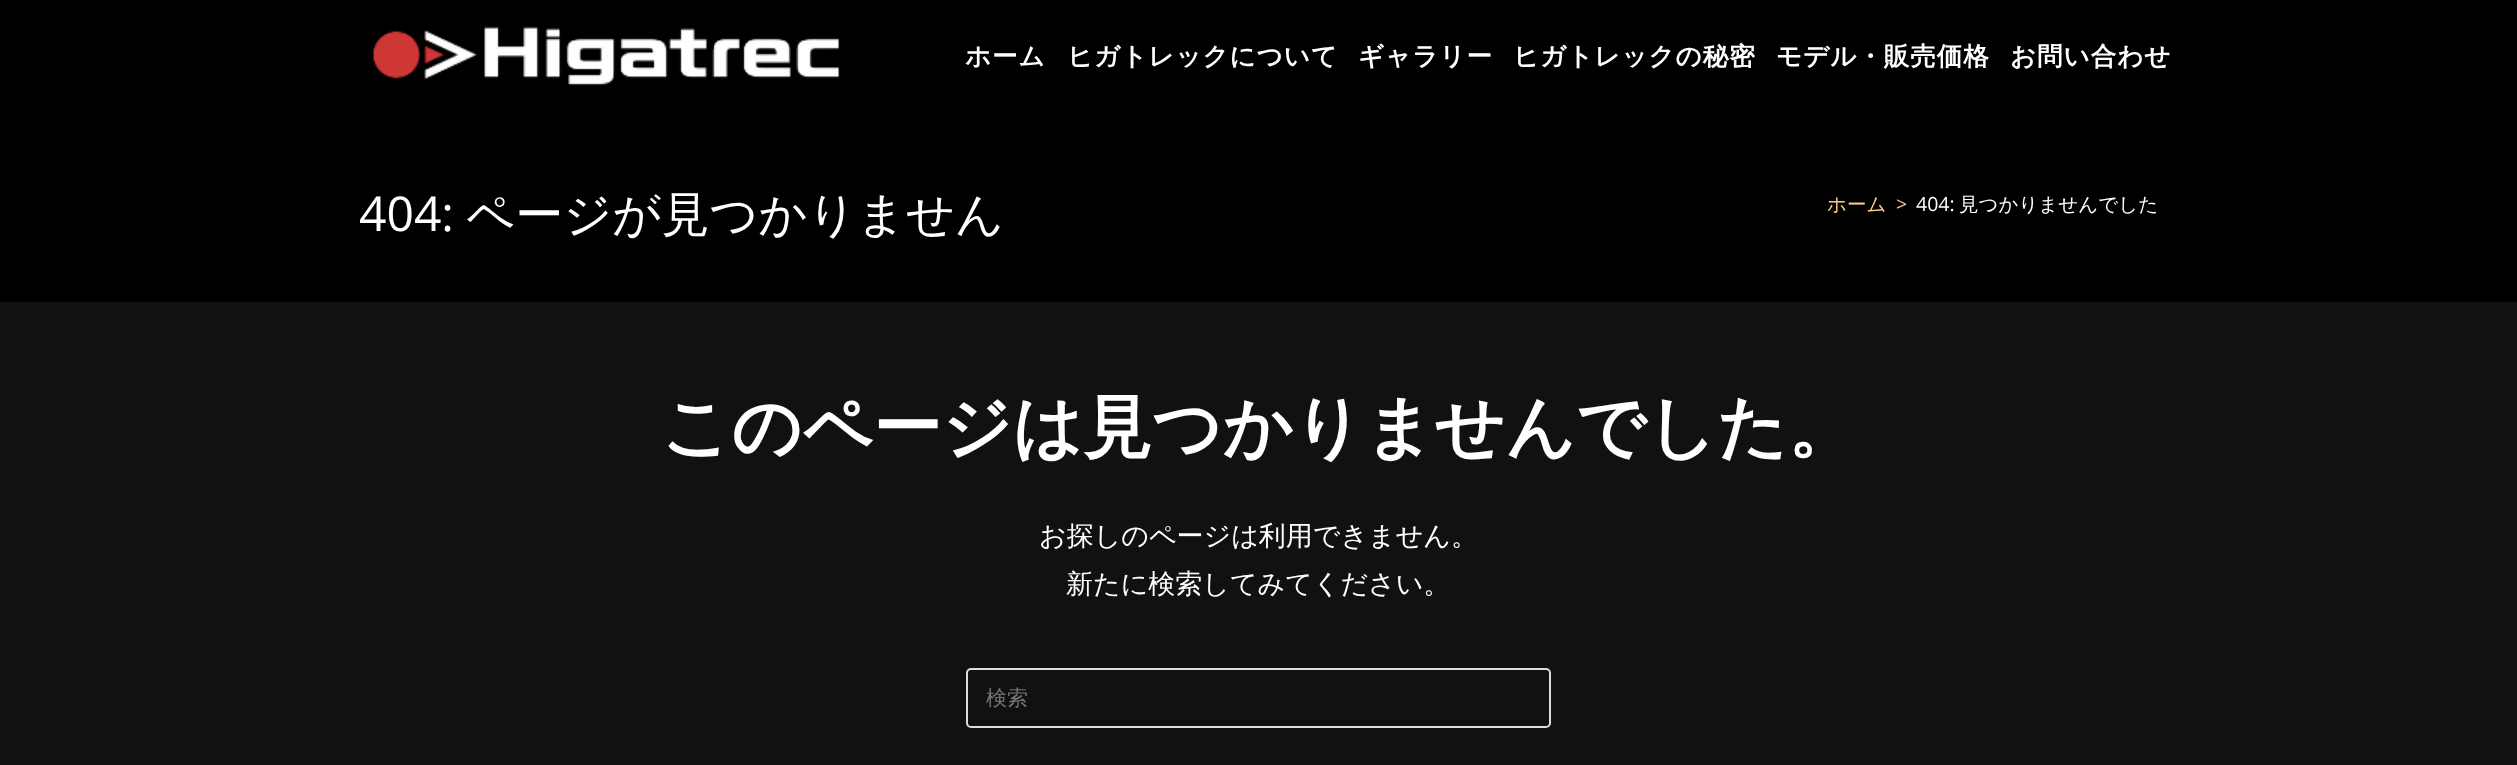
(async () => {
    const canvas = document.querySelector("canvas");
    canvas.width = 2517;
    canvas.height = 765;
    const context = canvas.getContext("2d");
    context.miterLimit = 4;
    context.fontKerning = "normal";
    function write(s, x, y, font, color) {
        context.font = font;
        context.fillStyle = color;
        context.fillText(s, x, y);
    }
    function block(x, y, w, h, color) {
        context.fillStyle = color;
        context.fillRect(x, y, w, h);
    }
    async function photo(src, x, y, w, h) {
        const img = new Image();
        img.src = src;
        await img.decode();
        context.drawImage(img, x, y, w, h);
    }

    block(0, 0, 2517, 765, "rgb(17, 17, 17)");
    block(0, 0, 2517, 302, "rgb(0, 0, 0)");
    await photo("media/1.png", 372, 26, 468, 60);
    context.letterSpacing = "1px";
    write("ホーム", 965, 65, "bold 25.5px WenQuanYi Zen Hei", "rgb(255, 255, 255)");
    write("ヒガトレックについて", 1067, 65, "bold 25.5px WenQuanYi Zen Hei", "rgb(255, 255, 255)");
    write("ギャラリー", 1358, 65, "bold 25.5px WenQuanYi Zen Hei", "rgb(255, 255, 255)");
    write("ヒガトレックの秘密", 1513, 65, "bold 25.5px WenQuanYi Zen Hei", "rgb(255, 255, 255)");
    write("モデル・販売価格", 1776, 65, "bold 25.5px WenQuanYi Zen Hei", "rgb(255, 255, 255)");
    write("お問い合わせ", 2010, 65, "bold 25.5px WenQuanYi Zen Hei", "rgb(255, 255, 255)");
    context.letterSpacing = "0px";
    write("404:", 359, 231, "48px Open Sans", "rgb(255, 255, 255)");
    write("ページが見つかりません", 466, 231, "500 48px WenQuanYi Zen Hei", "rgb(255, 255, 255)");
    write("ホーム", 1827, 211, "500 19.5px WenQuanYi Zen Hei", "rgb(255, 202, 128)");
    write(">", 1896, 211, "19.5px Open Sans", "rgb(255, 202, 128)");
    write("404:", 1916, 211, "19.5px Open Sans", "rgb(255, 255, 255)");
    write("見つかりませんでした", 1959, 211, "500 19.5px WenQuanYi Zen Hei", "rgb(255, 255, 255)");
    write("このページは見つかりませんでした。", 661, 451, "bold 69px WenQuanYi Zen Hei", "rgb(255, 255, 255)");
    write("お探しのページは利用できません。", 1039, 545, "500 27px WenQuanYi Zen Hei", "rgb(255, 255, 255)");
    write("新たに検索してみてください。", 1066, 593, "500 27px WenQuanYi Zen Hei", "rgb(255, 255, 255)");
    context.beginPath();
    context.roundRect(967, 669, 583, 58, 4);
    context.strokeStyle = "rgb(221, 221, 221)";
    context.lineWidth = 2;
    context.stroke();
    write("検索", 986, 705, "500 21px WenQuanYi Zen Hei", "rgb(117, 117, 117)");
})();
